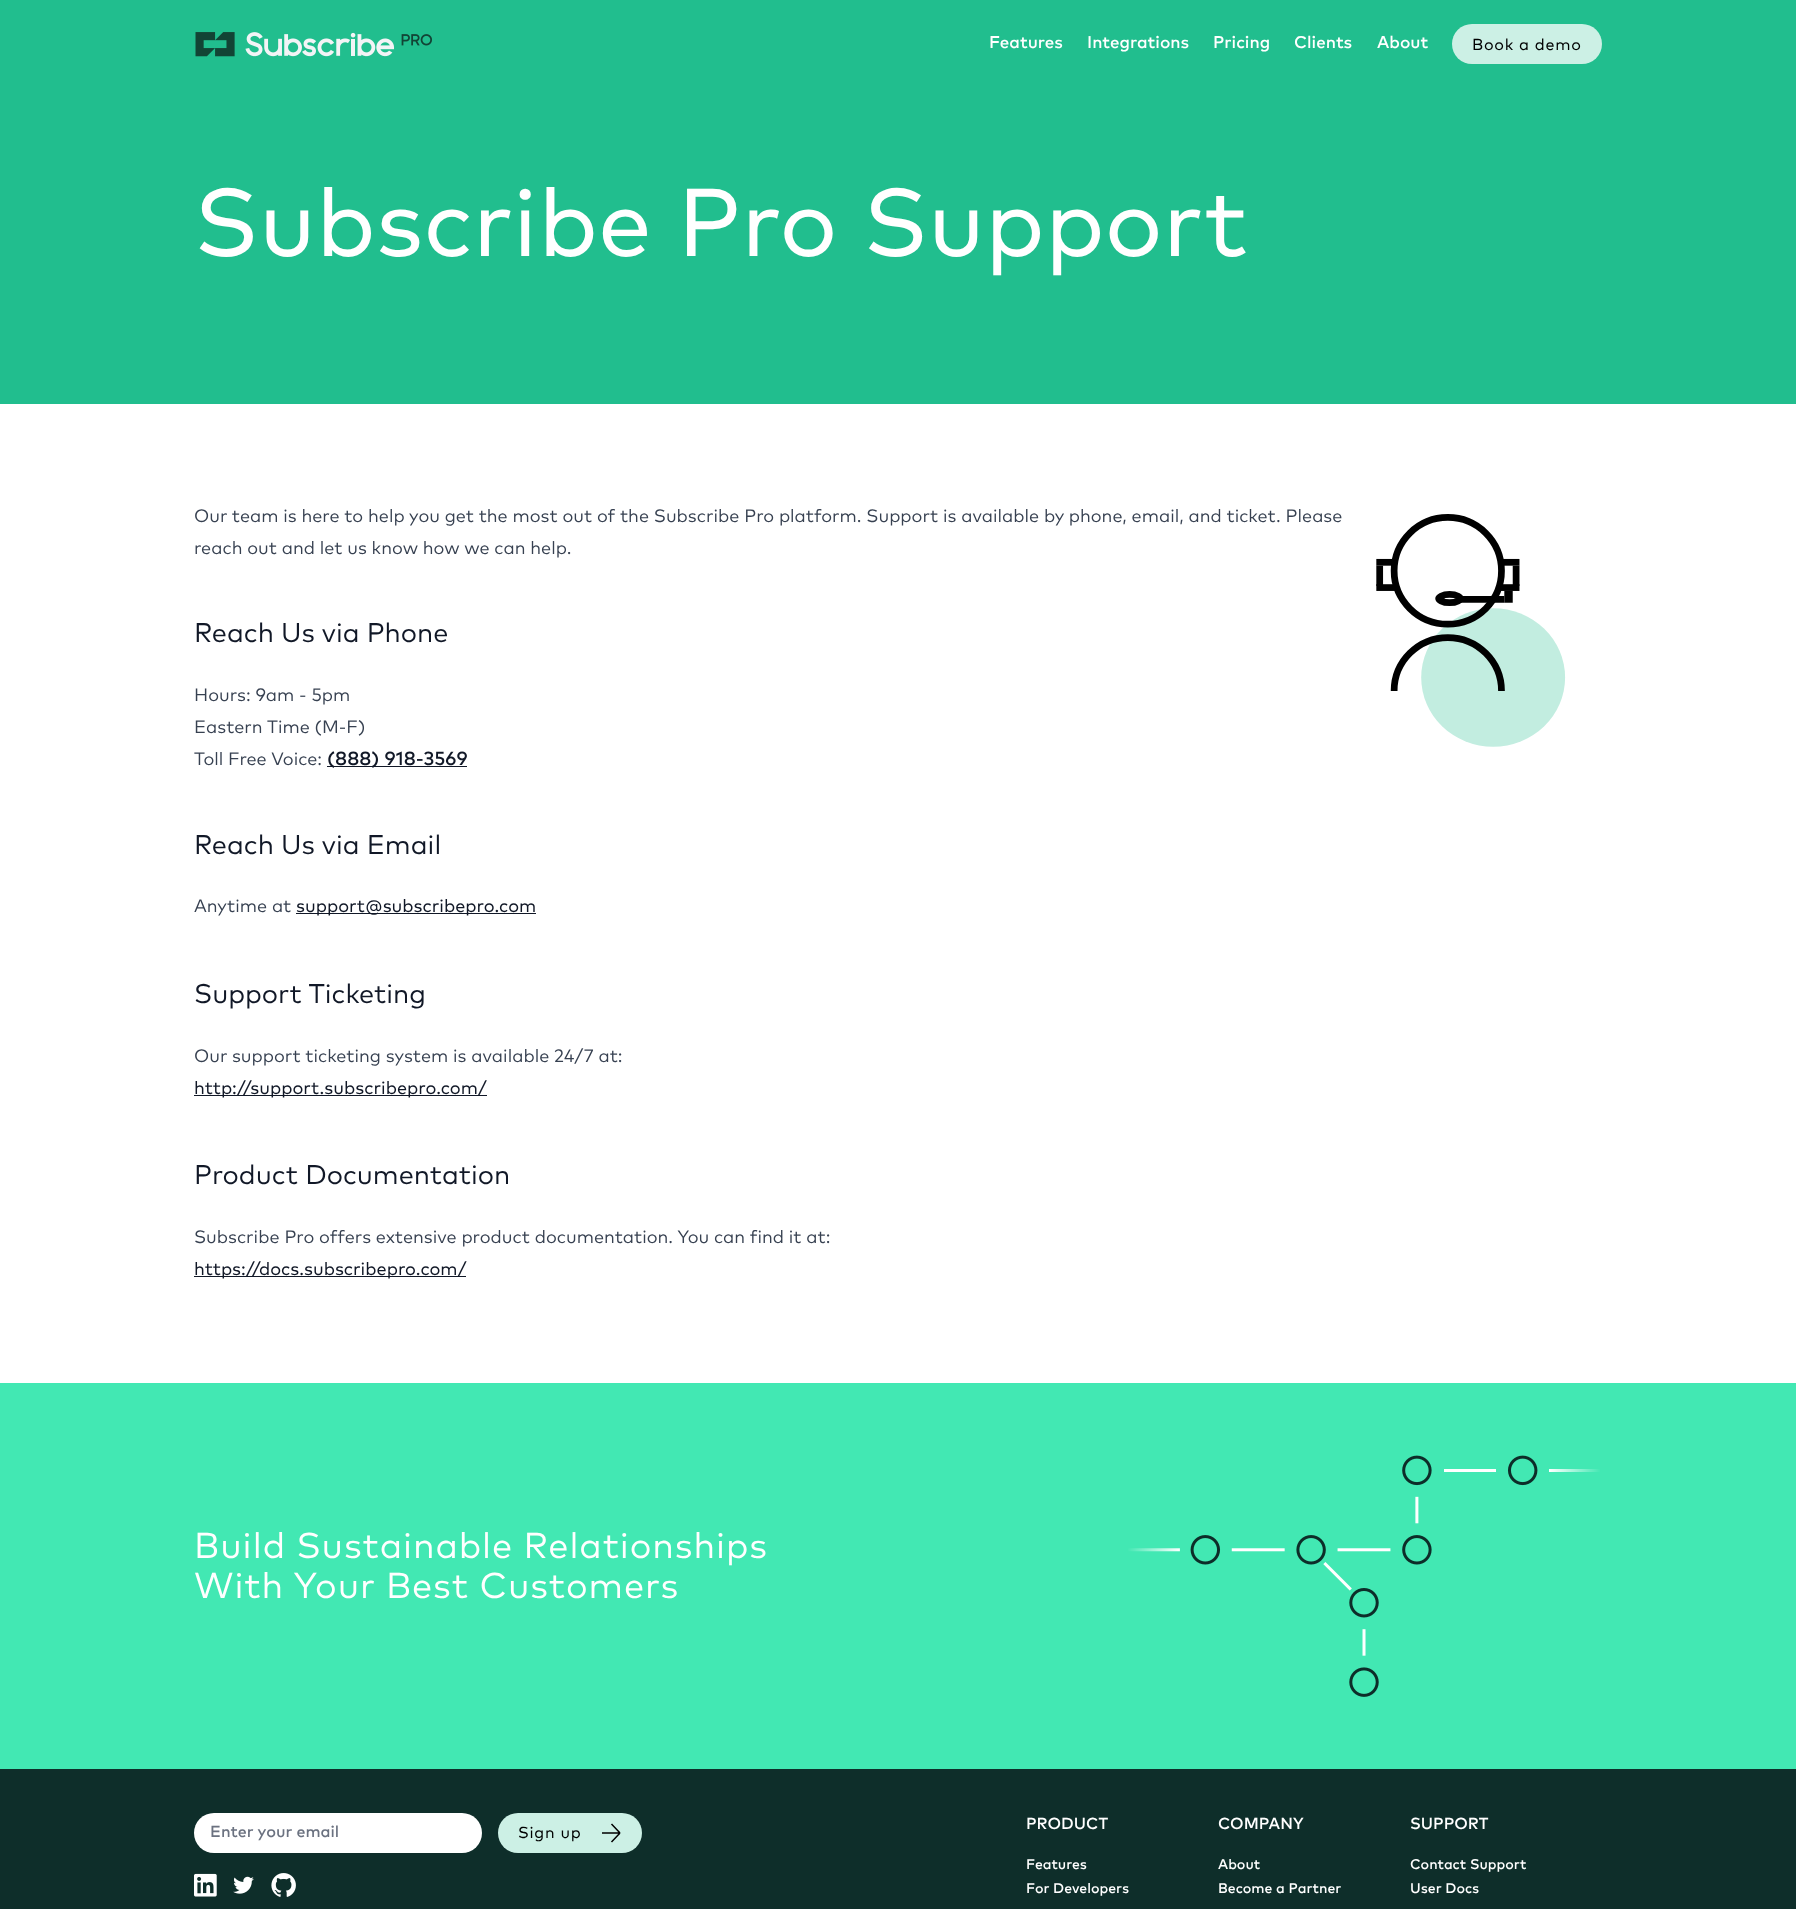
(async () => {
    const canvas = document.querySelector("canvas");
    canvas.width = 1796;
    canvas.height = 1909;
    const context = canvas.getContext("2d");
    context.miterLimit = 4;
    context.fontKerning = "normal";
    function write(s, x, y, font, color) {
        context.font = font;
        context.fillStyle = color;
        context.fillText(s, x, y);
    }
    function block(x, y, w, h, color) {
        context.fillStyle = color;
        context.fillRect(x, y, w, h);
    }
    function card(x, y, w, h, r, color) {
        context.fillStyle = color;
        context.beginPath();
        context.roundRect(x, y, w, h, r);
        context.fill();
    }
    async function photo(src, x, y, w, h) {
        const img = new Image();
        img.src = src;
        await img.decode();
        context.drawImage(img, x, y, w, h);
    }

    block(0, 0, 1796, 1909, "rgb(255, 255, 255)");
    block(0, 0, 1796, 404, "rgb(33, 190, 142)");
    await photo("media/1.png", 195, 32, 237, 25);
    write("Features", 989, 48, "500 17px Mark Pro", "rgb(255, 255, 255)");
    write("Integrations", 1087, 48, "500 17px Mark Pro", "rgb(255, 255, 255)");
    write("Pricing", 1213, 48, "500 17px Mark Pro", "rgb(255, 255, 255)");
    write("Clients", 1294, 48, "500 17px Mark Pro", "rgb(255, 255, 255)");
    write("About", 1377, 48, "500 17px Mark Pro", "rgb(255, 255, 255)");
    card(1452, 24, 150, 40, 20, "rgb(204, 240, 229)");
    context.letterSpacing = "0.75px";
    write("Book a demo", 1472, 50, "16px 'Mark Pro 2'", "rgb(0, 0, 0)");
    context.letterSpacing = "0px";
    write("Subscribe Pro Support", 194, 256, "96px 'Mark Pro 2'", "rgb(255, 255, 255)");
    write("Our team is here to help you get the most out of the Subscribe Pro platform. Support is available by phone, email, and ticket. Please", 194, 522, "18px Mark Pro", "rgb(55, 65, 81)");
    write("reach out and let us know how we can help.", 194, 554, "18px Mark Pro", "rgb(55, 65, 81)");
    await photo("media/2.png", 1376, 514, 190, 233);
    write("Reach Us via Phone", 194, 642, "27px Mark Pro", "rgb(17, 24, 39)");
    write("Hours: 9am - 5pm", 194, 701, "18px Mark Pro", "rgb(55, 65, 81)");
    write("Eastern Time (M-F)", 194, 733, "18px Mark Pro", "rgb(55, 65, 81)");
    write("Toll Free Voice:", 194, 765, "18px Mark Pro", "rgb(55, 65, 81)");
    block(327, 766, 140, 1, "rgb(17, 24, 39)");
    write("(888) 918-3569", 327, 765, "500 19px Mark Pro", "rgb(17, 24, 39)");
    write("Reach Us via Email", 194, 854, "27px Mark Pro", "rgb(17, 24, 39)");
    write("Anytime at", 194, 912, "18px Mark Pro", "rgb(55, 65, 81)");
    block(296, 913, 240, 1, "rgb(17, 24, 39)");
    write("support@subscribepro.com", 296, 912, "18px 'Mark Pro 2'", "rgb(17, 24, 39)");
    write("Support Ticketing", 194, 1003, "27px Mark Pro", "rgb(17, 24, 39)");
    write("Our support ticketing system is available 24/7 at:", 194, 1062, "18px Mark Pro", "rgb(55, 65, 81)");
    block(194, 1095, 293, 1, "rgb(17, 24, 39)");
    write("http://support.subscribepro.com/", 194, 1094, "18px 'Mark Pro 2'", "rgb(17, 24, 39)");
    write("Product Documentation", 194, 1184, "27px Mark Pro", "rgb(17, 24, 39)");
    write("Subscribe Pro offers extensive product documentation. You can find it at:", 194, 1243, "18px Mark Pro", "rgb(55, 65, 81)");
    block(194, 1276, 272, 1, "rgb(17, 24, 39)");
    write("https://docs.subscribepro.com/", 194, 1275, "18px 'Mark Pro 2'", "rgb(17, 24, 39)");
    block(0, 1383, 1796, 386, "rgb(66, 232, 179)");
    context.letterSpacing = "0.9px";
    write("Build Sustainable Relationships", 194, 1558, "36px Mark Pro", "rgb(255, 255, 255)");
    write("With Your Best Customers", 194, 1598, "36px Mark Pro", "rgb(255, 255, 255)");
    await photo("media/3.png", 1128, 1455, 472, 242);
    block(0, 1769, 1796, 140, "rgb(14, 46, 42)");
    card(194, 1813, 288, 40, 20, "rgb(255, 255, 255)");
    context.letterSpacing = "0px";
    write("Enter your email", 210, 1837, "500 16px Mark Pro", "rgb(107, 114, 128)");
    card(498, 1813, 144, 40, 20, "rgb(204, 240, 229)");
    context.letterSpacing = "0.75px";
    write("Sign up", 518, 1838, "16px 'Mark Pro 2'", "rgb(0, 0, 0)");
    context.beginPath();
    context.moveTo(611.5, 1824);
    context.lineTo(620, 1833);
    context.moveTo(620, 1833);
    context.lineTo(611.5, 1842);
    context.moveTo(620, 1833);
    context.lineTo(602, 1833);
    context.strokeStyle = "rgb(0, 0, 0)";
    context.lineWidth = 1.5;
    context.stroke();
    await photo("media/4.png", 194, 1873, 23, 24);
    await photo("media/5.png", 233, 1876, 21, 18);
    await photo("media/6.png", 271, 1873, 25, 24);
    context.letterSpacing = "0px";
    write("PRODUCT", 1026, 1829, "500 16px Mark Pro", "rgb(255, 255, 255)");
    write("Features", 1026, 1869, "500 14px Mark Pro", "rgb(255, 255, 255)");
    write("For Developers", 1026, 1893, "500 14px Mark Pro", "rgb(255, 255, 255)");
    write("COMPANY", 1218, 1829, "500 16px Mark Pro", "rgb(255, 255, 255)");
    write("About", 1218, 1869, "500 14px Mark Pro", "rgb(255, 255, 255)");
    write("Become a Partner", 1218, 1893, "500 14px Mark Pro", "rgb(255, 255, 255)");
    write("SUPPORT", 1410, 1829, "500 16px Mark Pro", "rgb(255, 255, 255)");
    write("Contact Support", 1410, 1869, "500 14px Mark Pro", "rgb(255, 255, 255)");
    write("User Docs", 1410, 1893, "500 14px Mark Pro", "rgb(255, 255, 255)");
})();
